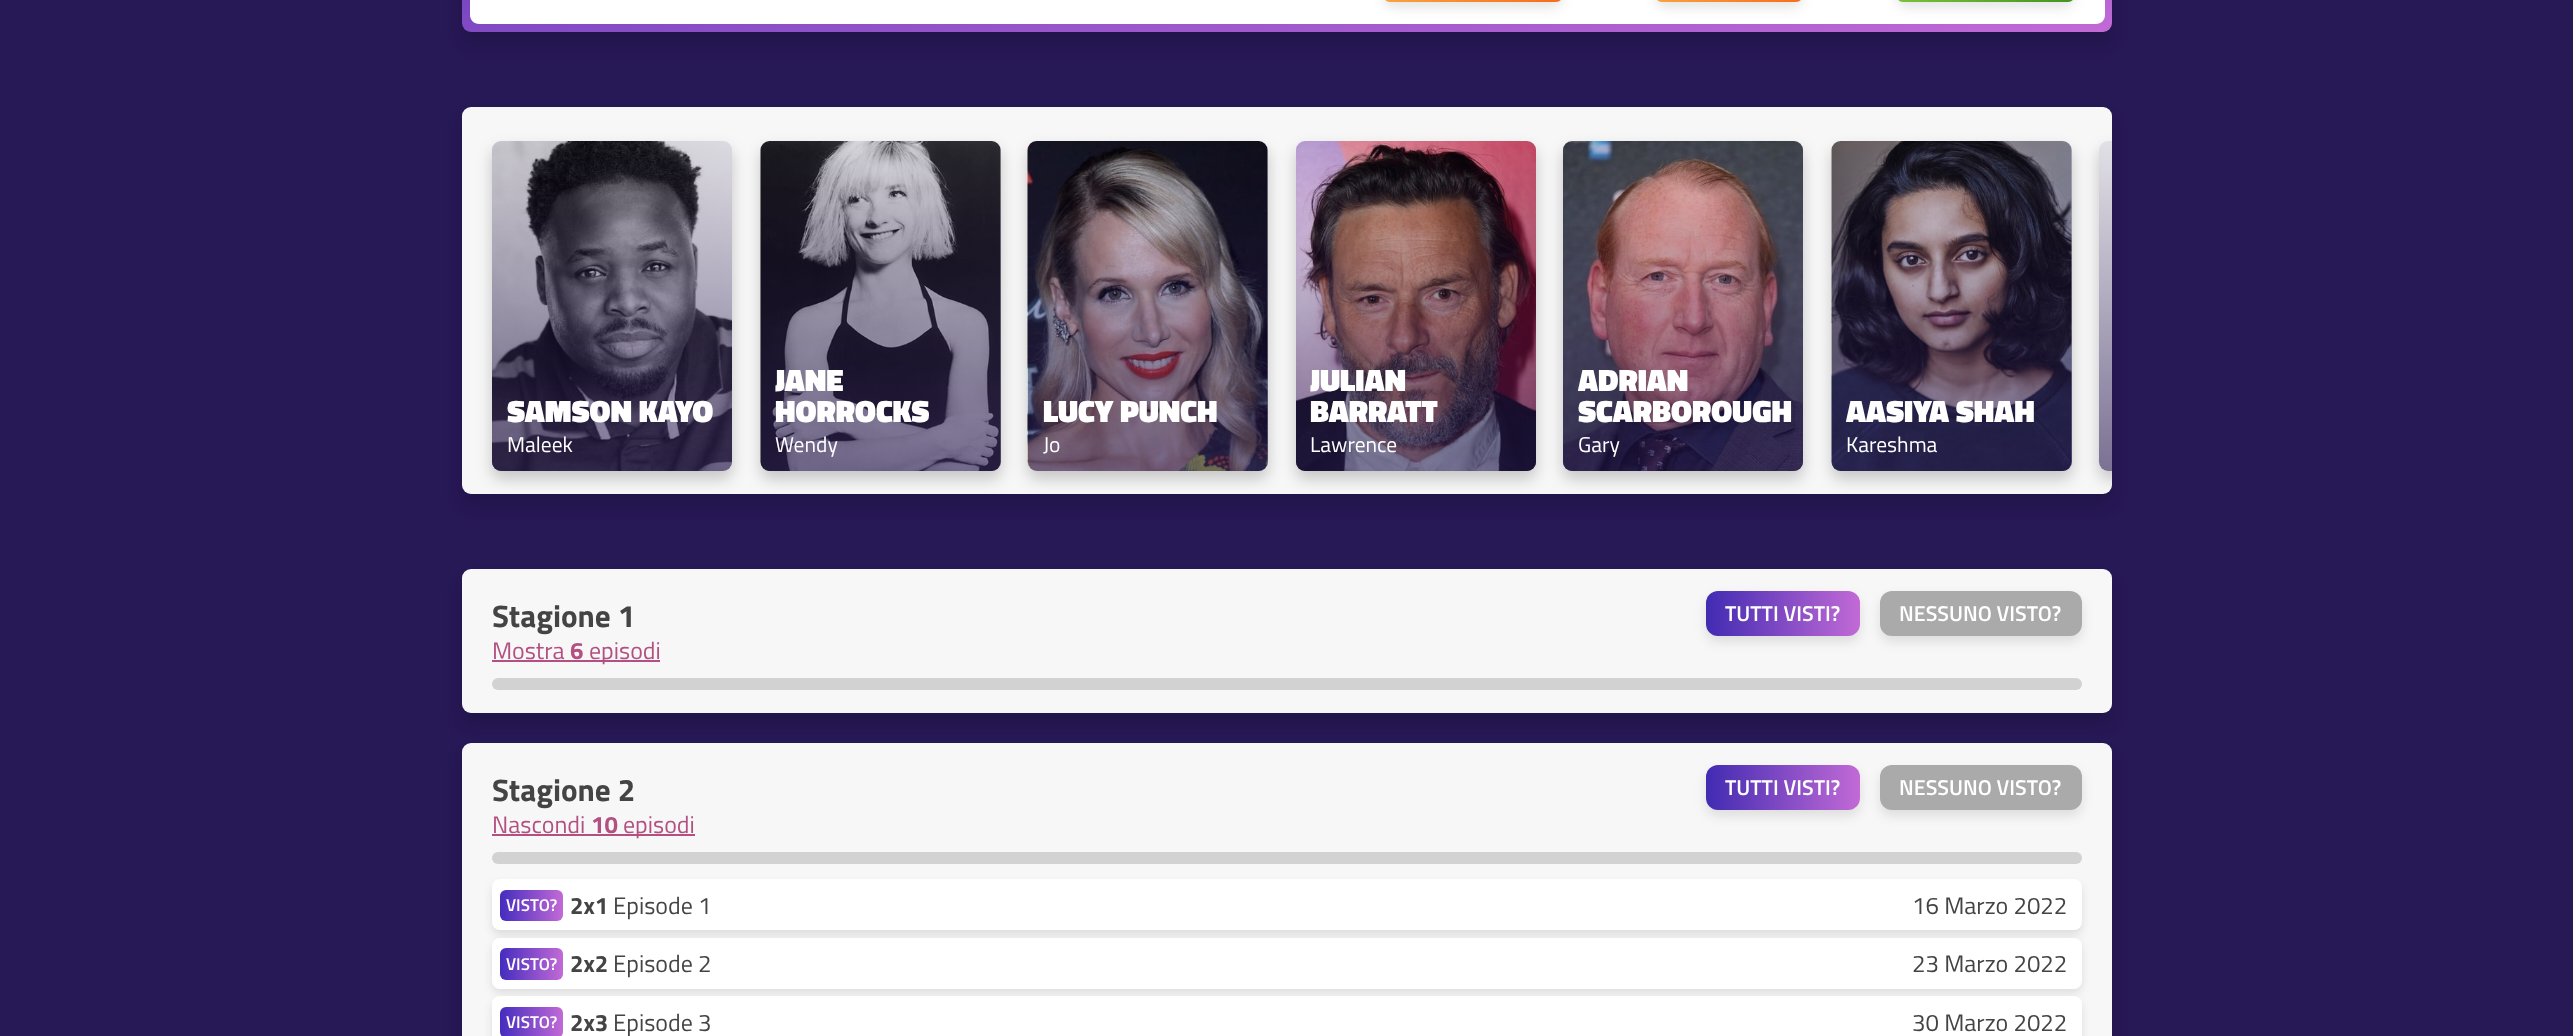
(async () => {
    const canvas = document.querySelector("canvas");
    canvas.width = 2573;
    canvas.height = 1036;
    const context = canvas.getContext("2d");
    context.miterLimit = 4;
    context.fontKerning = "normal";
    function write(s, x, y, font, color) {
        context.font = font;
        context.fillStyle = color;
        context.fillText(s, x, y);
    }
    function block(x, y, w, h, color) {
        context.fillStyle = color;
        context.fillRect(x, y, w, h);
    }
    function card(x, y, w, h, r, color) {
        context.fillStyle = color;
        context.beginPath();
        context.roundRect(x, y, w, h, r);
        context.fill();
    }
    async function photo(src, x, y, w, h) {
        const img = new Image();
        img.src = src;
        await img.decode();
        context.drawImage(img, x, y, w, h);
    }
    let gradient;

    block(0, 0, 2573, 1036, "rgb(39, 24, 86)");
    context.fillStyle = "rgba(0, 0, 0, 0.13)";
    context.filter = "blur(7.5px)";
    context.beginPath();
    context.roundRect(462, -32, 1650, 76, 9);
    context.fill();
    context.filter = "none";
    gradient = context.createLinearGradient(1255, -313, 1319, 143);
    gradient.addColorStop(0, "rgb(65, 43, 178)");
    gradient.addColorStop(1, "rgb(194, 106, 214)");
    context.fillStyle = gradient;
    context.beginPath();
    context.roundRect(462, -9, 1650, 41, 9);
    context.fill();
    context.fillStyle = "rgb(255, 255, 255)";
    context.beginPath();
    context.moveTo(470, -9);
    context.lineTo(2105, -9);
    context.lineTo(2105, 15);
    context.bezierCurveTo(2105, 20, 2101, 24, 2096, 24);
    context.lineTo(479, 24);
    context.bezierCurveTo(474, 24, 470, 20, 470, 15);
    context.closePath();
    context.fill();
    context.fillStyle = "rgba(0, 0, 0, 0.1)";
    context.filter = "blur(6px)";
    context.beginPath();
    context.roundRect(1383, -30, 180, 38, 12);
    context.fill();
    context.filter = "none";
    gradient = context.createLinearGradient(1461, -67, 1485, 22);
    gradient.addColorStop(0, "rgb(250, 217, 97)");
    gradient.addColorStop(1, "rgb(247, 107, 28)");
    context.fillStyle = gradient;
    context.beginPath();
    context.roundRect(1383, -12, 180, 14, 12);
    context.fill();
    context.fillStyle = "rgba(0, 0, 0, 0.1)";
    context.filter = "blur(6px)";
    context.beginPath();
    context.roundRect(1655, -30, 148, 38, 12);
    context.fill();
    context.filter = "none";
    gradient = context.createLinearGradient(1715, -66, 1743, 21);
    gradient.addColorStop(0, "rgb(250, 217, 97)");
    gradient.addColorStop(1, "rgb(247, 107, 28)");
    context.fillStyle = gradient;
    context.beginPath();
    context.roundRect(1655, -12, 148, 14, 12);
    context.fill();
    context.fillStyle = "rgba(0, 0, 0, 0.1)";
    context.filter = "blur(6px)";
    context.beginPath();
    context.roundRect(1896, -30, 179, 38, 12);
    context.fill();
    context.filter = "none";
    gradient = context.createLinearGradient(1973, -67, 1997, 22);
    gradient.addColorStop(0, "rgb(180, 236, 81)");
    gradient.addColorStop(1, "rgb(66, 147, 33)");
    context.fillStyle = gradient;
    context.beginPath();
    context.roundRect(1896, -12, 179, 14, 12);
    context.fill();
    context.fillStyle = "rgba(0, 0, 0, 0.13)";
    context.filter = "blur(7.5px)";
    context.beginPath();
    context.roundRect(462, 119, 1650, 387, 9);
    context.fill();
    context.filter = "none";
    card(462, 107, 1650, 387, 9, "rgb(247, 247, 247)");
    context.fillStyle = "rgba(0, 0, 0, 0.2)";
    context.filter = "blur(7.5px)";
    context.beginPath();
    context.roundRect(492, 149, 240, 330, 9);
    context.fill();
    context.filter = "none";
    await photo("media/1.png", 492, 141, 240, 330);
    gradient = context.createLinearGradient(612, 141, 612, 471);
    gradient.addColorStop(0, "rgba(40, 24, 82, 0.1)");
    gradient.addColorStop(1, "rgba(40, 24, 82, 0.6)");
    context.fillStyle = gradient;
    context.beginPath();
    context.roundRect(492, 141, 240, 330, 9);
    context.fill();
    write("SAMSON KAYO", 507, 422, "900 31.25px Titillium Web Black", "rgb(255, 255, 255)");
    write("Maleek", 507, 452, "21.5px Titillium Web", "rgb(255, 255, 255)");
    context.fillStyle = "rgba(0, 0, 0, 0.2)";
    context.filter = "blur(7.5px)";
    context.beginPath();
    context.roundRect(761, 149, 240, 330, 9);
    context.fill();
    context.filter = "none";
    await photo("media/2.png", 760, 141, 241, 330);
    gradient = context.createLinearGradient(881, 141, 881, 471);
    gradient.addColorStop(0, "rgba(40, 24, 82, 0.1)");
    gradient.addColorStop(1, "rgba(40, 24, 82, 0.6)");
    context.fillStyle = gradient;
    context.beginPath();
    context.roundRect(761, 141, 240, 330, 9);
    context.fill();
    write("JANE", 775, 391, "900 31.25px Titillium Web Black", "rgb(255, 255, 255)");
    write("HORROCKS", 775, 422, "900 31.25px Titillium Web Black", "rgb(255, 255, 255)");
    write("Wendy", 775, 452, "21.5px Titillium Web", "rgb(255, 255, 255)");
    context.fillStyle = "rgba(0, 0, 0, 0.2)";
    context.filter = "blur(7.5px)";
    context.beginPath();
    context.roundRect(1028, 149, 240, 330, 9);
    context.fill();
    context.filter = "none";
    await photo("media/3.png", 1027, 141, 241, 330);
    gradient = context.createLinearGradient(1148, 141, 1148, 471);
    gradient.addColorStop(0, "rgba(40, 24, 82, 0.1)");
    gradient.addColorStop(1, "rgba(40, 24, 82, 0.6)");
    context.fillStyle = gradient;
    context.beginPath();
    context.roundRect(1028, 141, 240, 330, 9);
    context.fill();
    write("LUCY PUNCH", 1043, 422, "900 31.25px Titillium Web Black", "rgb(255, 255, 255)");
    write("Jo", 1043, 452, "21.5px Titillium Web", "rgb(255, 255, 255)");
    context.fillStyle = "rgba(0, 0, 0, 0.2)";
    context.filter = "blur(7.5px)";
    context.beginPath();
    context.roundRect(1296, 149, 240, 330, 9);
    context.fill();
    context.filter = "none";
    await photo("media/4.png", 1296, 141, 240, 330);
    gradient = context.createLinearGradient(1416, 141, 1416, 471);
    gradient.addColorStop(0, "rgba(40, 24, 82, 0.1)");
    gradient.addColorStop(1, "rgba(40, 24, 82, 0.6)");
    context.fillStyle = gradient;
    context.beginPath();
    context.roundRect(1296, 141, 240, 330, 9);
    context.fill();
    write("JULIAN", 1310, 391, "900 31.25px Titillium Web Black", "rgb(255, 255, 255)");
    write("BARRATT", 1310, 422, "900 31.25px Titillium Web Black", "rgb(255, 255, 255)");
    write("Lawrence", 1310, 452, "21.5px Titillium Web", "rgb(255, 255, 255)");
    context.fillStyle = "rgba(0, 0, 0, 0.2)";
    context.filter = "blur(7.5px)";
    context.beginPath();
    context.roundRect(1563, 149, 240, 330, 9);
    context.fill();
    context.filter = "none";
    await photo("media/5.png", 1563, 141, 240, 330);
    gradient = context.createLinearGradient(1683, 141, 1683, 471);
    gradient.addColorStop(0, "rgba(40, 24, 82, 0.1)");
    gradient.addColorStop(1, "rgba(40, 24, 82, 0.6)");
    context.fillStyle = gradient;
    context.beginPath();
    context.roundRect(1563, 141, 240, 330, 9);
    context.fill();
    write("ADRIAN", 1578, 391, "900 31.25px Titillium Web Black", "rgb(255, 255, 255)");
    write("SCARBOROUGH", 1578, 422, "900 31.25px Titillium Web Black", "rgb(255, 255, 255)");
    write("Gary", 1578, 452, "21.5px Titillium Web", "rgb(255, 255, 255)");
    context.fillStyle = "rgba(0, 0, 0, 0.2)";
    context.filter = "blur(7.5px)";
    context.beginPath();
    context.roundRect(1832, 149, 240, 330, 9);
    context.fill();
    context.filter = "none";
    await photo("media/6.png", 1831, 141, 241, 330);
    gradient = context.createLinearGradient(1952, 141, 1952, 471);
    gradient.addColorStop(0, "rgba(40, 24, 82, 0.1)");
    gradient.addColorStop(1, "rgba(40, 24, 82, 0.6)");
    context.fillStyle = gradient;
    context.beginPath();
    context.roundRect(1832, 141, 240, 330, 9);
    context.fill();
    write("AASIYA SHAH", 1846, 422, "900 31.25px Titillium Web Black", "rgb(255, 255, 255)");
    write("Kareshma", 1846, 452, "21.5px Titillium Web", "rgb(255, 255, 255)");
    context.save();
    context.beginPath();
    context.roundRect(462, 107, 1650, 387, 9);
    context.clip();
    context.beginPath();
    context.moveTo(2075, 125);
    context.lineTo(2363, 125);
    context.lineTo(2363, 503);
    context.lineTo(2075, 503);
    context.closePath();
    context.moveTo(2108, 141);
    context.lineTo(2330, 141);
    context.bezierCurveTo(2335, 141, 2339, 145, 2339, 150);
    context.lineTo(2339, 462);
    context.bezierCurveTo(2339, 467, 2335, 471, 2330, 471);
    context.lineTo(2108, 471);
    context.bezierCurveTo(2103, 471, 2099, 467, 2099, 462);
    context.lineTo(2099, 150);
    context.bezierCurveTo(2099, 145, 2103, 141, 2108, 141);
    context.closePath();
    context.clip("evenodd");
    context.fillStyle = "rgba(0, 0, 0, 0.2)";
    context.filter = "blur(7.5px)";
    context.beginPath();
    context.roundRect(2099, 149, 240, 330, 9);
    context.fill();
    context.filter = "none";
    context.restore();
    gradient = context.createLinearGradient(2219, 141, 2219, 471);
    gradient.addColorStop(0, "rgba(40, 24, 82, 0.1)");
    gradient.addColorStop(1, "rgba(40, 24, 82, 0.6)");
    context.fillStyle = gradient;
    context.beginPath();
    context.roundRect(2099, 141, 13, 330, [9, 0, 0, 9]);
    context.fill();
    context.fillStyle = "rgba(0, 0, 0, 0.13)";
    context.filter = "blur(7.5px)";
    context.beginPath();
    context.roundRect(462, 581, 1650, 144, 9);
    context.fill();
    context.filter = "none";
    card(462, 569, 1650, 144, 9, "rgb(247, 247, 247)");
    write("Stagione 1", 492, 627, "bold 31.25px Titillium Web", "rgb(68, 68, 68)");
    write("Mostra", 492, 659, "24px Titillium Web", "rgb(179, 80, 129)");
    write("6", 570, 659, "bold 24px Titillium Web", "rgb(179, 80, 129)");
    block(492, 660, 168, 2, "rgb(179, 80, 129)");
    write("episodi", 589, 659, "24px Titillium Web", "rgb(179, 80, 129)");
    context.fillStyle = "rgba(0, 0, 0, 0.1)";
    context.filter = "blur(6px)";
    context.beginPath();
    context.roundRect(1706, 597, 154, 45, 12);
    context.fill();
    context.filter = "none";
    gradient = context.createLinearGradient(1706, 614, 1860, 614);
    gradient.addColorStop(0, "rgb(65, 43, 178)");
    gradient.addColorStop(1, "rgb(194, 106, 214)");
    context.fillStyle = gradient;
    context.beginPath();
    context.roundRect(1706, 591, 154, 45, 12);
    context.fill();
    write("TUTTI VISTI?", 1725, 621, "600 21.5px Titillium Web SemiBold", "rgb(255, 255, 255)");
    context.fillStyle = "rgba(0, 0, 0, 0.1)";
    context.filter = "blur(6px)";
    context.beginPath();
    context.roundRect(1880, 597, 202, 45, 12);
    context.fill();
    context.filter = "none";
    card(1880, 591, 202, 45, 12, "rgb(170, 170, 170)");
    write("NESSUNO VISTO?", 1899, 621, "600 21.5px Titillium Web SemiBold", "rgb(255, 255, 255)");
    card(492, 678, 1590, 12, 6, "rgb(210, 210, 210)");
    context.fillStyle = "rgba(0, 0, 0, 0.13)";
    context.filter = "blur(7.5px)";
    context.beginPath();
    context.roundRect(462, 755, 1650, 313, 9);
    context.fill();
    context.filter = "none";
    card(462, 743, 1650, 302, 9, "rgb(247, 247, 247)");
    write("Stagione 2", 492, 801, "bold 31.25px Titillium Web", "rgb(68, 68, 68)");
    write("Nascondi", 492, 833, "24px Titillium Web", "rgb(179, 80, 129)");
    write("10", 591, 833, "bold 24px Titillium Web", "rgb(179, 80, 129)");
    block(492, 834, 203, 2, "rgb(179, 80, 129)");
    write("episodi", 623, 833, "24px Titillium Web", "rgb(179, 80, 129)");
    context.fillStyle = "rgba(0, 0, 0, 0.1)";
    context.filter = "blur(6px)";
    context.beginPath();
    context.roundRect(1706, 771, 154, 45, 12);
    context.fill();
    context.filter = "none";
    gradient = context.createLinearGradient(1706, 788, 1860, 788);
    gradient.addColorStop(0, "rgb(65, 43, 178)");
    gradient.addColorStop(1, "rgb(194, 106, 214)");
    context.fillStyle = gradient;
    context.beginPath();
    context.roundRect(1706, 765, 154, 45, 12);
    context.fill();
    write("TUTTI VISTI?", 1725, 795, "600 21.5px Titillium Web SemiBold", "rgb(255, 255, 255)");
    context.fillStyle = "rgba(0, 0, 0, 0.1)";
    context.filter = "blur(6px)";
    context.beginPath();
    context.roundRect(1880, 771, 202, 45, 12);
    context.fill();
    context.filter = "none";
    card(1880, 765, 202, 45, 12, "rgb(170, 170, 170)");
    write("NESSUNO VISTO?", 1899, 795, "600 21.5px Titillium Web SemiBold", "rgb(255, 255, 255)");
    card(492, 852, 1590, 12, 6, "rgb(210, 210, 210)");
    context.fillStyle = "rgba(0, 0, 0, 0.1)";
    context.filter = "blur(4.5px)";
    context.beginPath();
    context.roundRect(492, 884, 1590, 51, 8);
    context.fill();
    context.filter = "none";
    card(492, 879, 1590, 51, 8, "rgb(255, 255, 255)");
    gradient = context.createLinearGradient(500, 905, 563, 905);
    gradient.addColorStop(0, "rgb(68, 44, 191)");
    gradient.addColorStop(1, "rgb(194, 106, 214)");
    context.fillStyle = gradient;
    context.beginPath();
    context.roundRect(500, 890, 63, 31, 6);
    context.fill();
    write("VISTO?", 506, 911, "600 17px Titillium Web SemiBold", "rgb(255, 255, 255)");
    write("2x1", 570, 914, "bold 24px Titillium Web", "rgb(68, 68, 68)");
    write("Episode 1", 613, 914, "24px Titillium Web", "rgb(68, 68, 68)");
    write("16 Marzo 2022", 1912, 914, "24px Titillium Web", "rgb(68, 68, 68)");
    context.fillStyle = "rgba(0, 0, 0, 0.1)";
    context.filter = "blur(4.5px)";
    context.beginPath();
    context.roundRect(492, 942, 1590, 51, 8);
    context.fill();
    context.filter = "none";
    card(492, 938, 1590, 51, 8, "rgb(255, 255, 255)");
    gradient = context.createLinearGradient(500, 964, 563, 964);
    gradient.addColorStop(0, "rgb(68, 44, 191)");
    gradient.addColorStop(1, "rgb(194, 106, 214)");
    context.fillStyle = gradient;
    context.beginPath();
    context.roundRect(500, 948, 63, 32, 6);
    context.fill();
    write("VISTO?", 506, 970, "600 17px Titillium Web SemiBold", "rgb(255, 255, 255)");
    write("2x2", 570, 972, "bold 24px Titillium Web", "rgb(68, 68, 68)");
    write("Episode 2", 613, 972, "24px Titillium Web", "rgb(68, 68, 68)");
    write("23 Marzo 2022", 1912, 972, "24px Titillium Web", "rgb(68, 68, 68)");
    context.fillStyle = "rgba(0, 0, 0, 0.1)";
    context.filter = "blur(4.5px)";
    context.beginPath();
    context.roundRect(492, 1001, 1590, 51, 8);
    context.fill();
    context.filter = "none";
    card(492, 996, 1590, 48, 8, "rgb(255, 255, 255)");
    gradient = context.createLinearGradient(500, 1022, 563, 1022);
    gradient.addColorStop(0, "rgb(68, 44, 191)");
    gradient.addColorStop(1, "rgb(194, 106, 214)");
    context.fillStyle = gradient;
    context.beginPath();
    context.roundRect(500, 1007, 63, 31, 6);
    context.fill();
    write("VISTO?", 506, 1028, "600 17px Titillium Web SemiBold", "rgb(255, 255, 255)");
    write("2x3", 570, 1031, "bold 24px Titillium Web", "rgb(68, 68, 68)");
    write("Episode 3", 613, 1031, "24px Titillium Web", "rgb(68, 68, 68)");
    write("30 Marzo 2022", 1912, 1031, "24px Titillium Web", "rgb(68, 68, 68)");
})();
